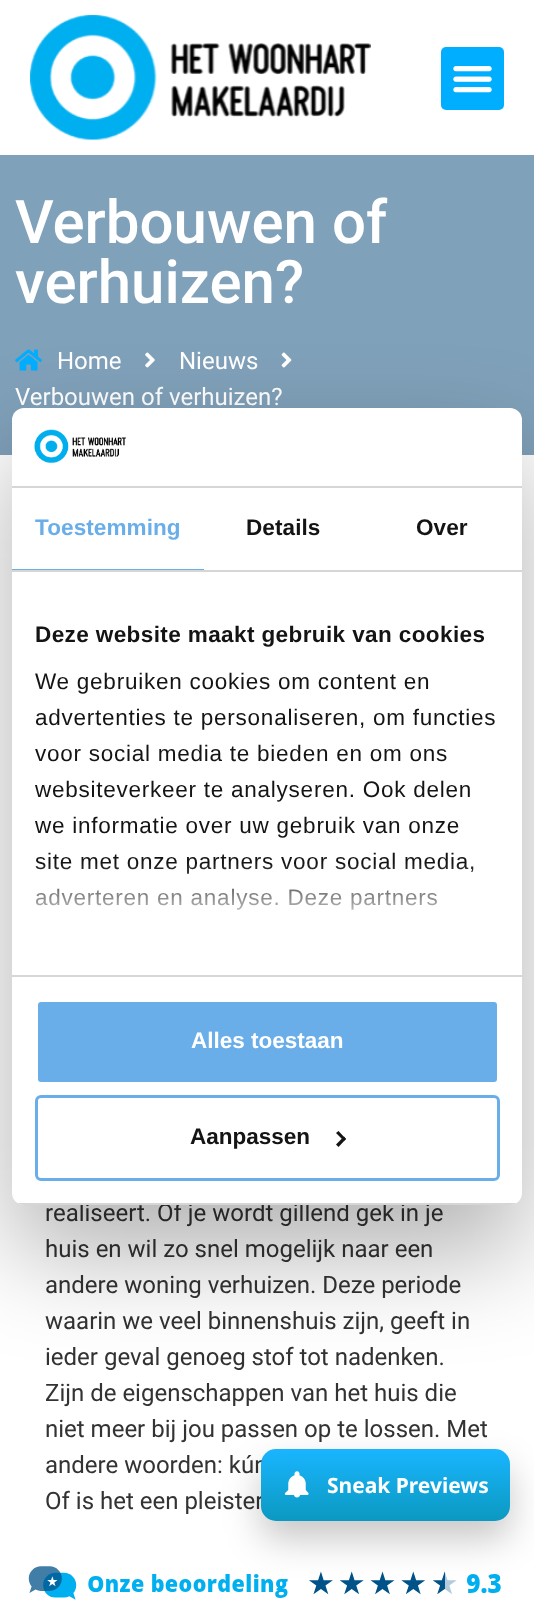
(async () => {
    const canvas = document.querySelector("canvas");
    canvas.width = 534;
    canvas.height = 1610;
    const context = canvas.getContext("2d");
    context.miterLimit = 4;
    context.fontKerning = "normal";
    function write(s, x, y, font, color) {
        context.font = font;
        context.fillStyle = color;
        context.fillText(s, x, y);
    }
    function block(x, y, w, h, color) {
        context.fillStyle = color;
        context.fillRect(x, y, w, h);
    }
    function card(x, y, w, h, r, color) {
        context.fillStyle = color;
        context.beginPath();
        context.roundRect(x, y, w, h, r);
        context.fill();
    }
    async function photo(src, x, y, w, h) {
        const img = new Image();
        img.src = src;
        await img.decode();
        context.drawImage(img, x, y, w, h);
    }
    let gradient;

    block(0, 0, 534, 1610, "rgb(255, 255, 255)");
    await photo("media/1.png", 30, 15, 341, 125);
    card(441, 47, 63, 63, 5, "rgb(0, 174, 255)");
    await photo("media/2.png", 453, 66, 39, 27);
    block(0, 155, 534, 300, "rgb(128, 161, 186)");
    write("Verbouwen of", 15, 243, "500 60px Roboto", "rgb(255, 255, 255)");
    write("verhuizen?", 15, 303, "500 60px Roboto", "rgb(255, 255, 255)");
    await photo("media/3.png", 15, 349, 27, 22);
    write("Home", 57, 369, "24px Roboto", "rgb(255, 255, 255)");
    await photo("media/4.png", 145, 352, 10, 16);
    write("Nieuws", 179, 369, "24px Roboto", "rgb(255, 255, 255)");
    await photo("media/5.png", 281, 352, 11, 16);
    write("Verbouwen of verhuizen?", 15, 405, "24px Roboto", "rgb(255, 255, 255)");
    write("realiseert. Of je wordt gillend gek in je", 45, 1221, "24px Roboto", "rgb(51, 51, 51)");
    write("huis en wil zo snel mogelijk naar een", 45, 1257, "24px Roboto", "rgb(51, 51, 51)");
    write("andere woning verhuizen. Deze periode", 45, 1293, "24px Roboto", "rgb(51, 51, 51)");
    write("waarin we veel binnenshuis zijn, geeft in", 45, 1329, "24px Roboto", "rgb(51, 51, 51)");
    write("ieder geval genoeg stof tot nadenken.", 45, 1365, "24px Roboto", "rgb(51, 51, 51)");
    write("Zijn de eigenschappen van het huis die", 45, 1401, "24px Roboto", "rgb(51, 51, 51)");
    write("niet meer bij jou passen op te lossen. Met", 45, 1437, "24px Roboto", "rgb(51, 51, 51)");
    write("andere woorden: kún", 45, 1473, "24px Roboto", "rgb(51, 51, 51)");
    write("Of is het een pleister", 45, 1509, "24px Roboto", "rgb(51, 51, 51)");
    context.fillStyle = "rgba(0, 0, 0, 0.3)";
    context.filter = "blur(51px)";
    context.beginPath();
    context.roundRect(12, 456, 510, 797, 12);
    context.fill();
    context.filter = "none";
    card(12, 408, 510, 797, 12, "rgb(255, 255, 255)");
    block(12, 486, 510, 2, "rgb(214, 214, 214)");
    await photo("media/6.png", 34, 429, 92, 34);
    block(12, 570, 510, 2, "rgb(214, 214, 214)");
    block(12, 569, 192, 1, "rgb(105, 174, 233)");
    context.letterSpacing = "0.1px";
    write("Toestemming", 35, 535, "bold 22.5px Liberation Sans", "rgb(105, 174, 233)");
    write("Details", 246, 535, "bold 22.5px Liberation Sans", "rgb(20, 20, 20)");
    write("Over", 416, 535, "bold 22.5px Liberation Sans", "rgb(20, 20, 20)");
    block(12, 975, 510, 2, "rgb(214, 214, 214)");
    context.letterSpacing = "0.4px";
    write("Deze website maakt gebruik van cookies", 35, 642, "bold 22.5px Liberation Sans", "rgb(20, 20, 20)");
    context.letterSpacing = "0.75px";
    write("We gebruiken cookies om content en", 35, 689, "22.5px Liberation Sans", "rgb(20, 20, 20)");
    write("advertenties te personaliseren, om functies", 35, 725, "22.5px Liberation Sans", "rgb(20, 20, 20)");
    write("voor social media te bieden en om ons", 35, 761, "22.5px Liberation Sans", "rgb(20, 20, 20)");
    write("websiteverkeer te analyseren. Ook delen", 35, 797, "22.5px Liberation Sans", "rgb(20, 20, 20)");
    write("we informatie over uw gebruik van onze", 35, 833, "22.5px Liberation Sans", "rgb(20, 20, 20)");
    write("site met onze partners voor social media,", 35, 869, "22.5px Liberation Sans", "rgb(20, 20, 20)");
    write("adverteren en analyse. Deze partners", 35, 905, "22.5px Liberation Sans", "rgb(20, 20, 20)");
    gradient = context.createLinearGradient(257, 974, 257, 862);
    gradient.addColorStop(0, "rgb(255, 255, 255)");
    gradient.addColorStop(0.5, "rgba(255, 255, 255, 0.8)");
    gradient.addColorStop(1, "rgba(255, 255, 255, 0)");
    context.fillStyle = gradient;
    context.fillRect(35, 864, 438, 46);
    context.save();
    context.beginPath();
    context.roundRect(12, 408, 510, 797, 12);
    context.clip();
    block(12, 1203, 510, 2, "rgb(214, 214, 214)");
    context.restore();
    context.fillStyle = "rgb(105, 174, 233)";
    context.beginPath();
    context.roundRect(36.5, 1000.5, 462, 83, 4.5);
    context.fill();
    context.strokeStyle = "rgb(255, 255, 255)";
    context.lineWidth = 3;
    context.stroke();
    context.letterSpacing = "0px";
    write("Alles toestaan", 191, 1048, "bold 22.5px Liberation Sans", "rgb(255, 255, 255)");
    context.beginPath();
    context.roundRect(36.5, 1096.5, 462, 83, 4.5);
    context.strokeStyle = "rgb(105, 174, 233)";
    context.stroke();
    write("Aanpassen", 190, 1144, "bold 22.5px Liberation Sans", "rgb(20, 20, 20)");
    context.beginPath();
    context.moveTo(338.5, 1131);
    context.lineTo(346, 1139);
    context.lineTo(344, 1141);
    context.lineTo(336, 1133);
    context.closePath();
    context.fill();
    context.beginPath();
    context.moveTo(344, 1136.5);
    context.lineTo(346, 1139);
    context.lineTo(338.5, 1147);
    context.lineTo(336, 1144.5);
    context.closePath();
    context.fill();
    await photo("media/8.png", 28, 1556, 473, 44);
    context.fillStyle = "rgba(0, 0, 0, 0.22)";
    context.filter = "blur(18px)";
    context.beginPath();
    context.roundRect(261, 1467, 249, 72, 15);
    context.fill();
    context.filter = "none";
    gradient = context.createLinearGradient(386, 1449, 386, 1521);
    gradient.addColorStop(0, "rgb(25, 181, 255)");
    gradient.addColorStop(1, "rgb(11, 153, 192)");
    context.fillStyle = gradient;
    context.beginPath();
    context.roundRect(261, 1449, 249, 72, 15);
    context.fill();
    await photo("media/7.png", 284, 1471, 25, 27);
    write("Sneak Previews", 327, 1493, "bold 21px Noto Sans", "rgb(255, 255, 255)");
})();
